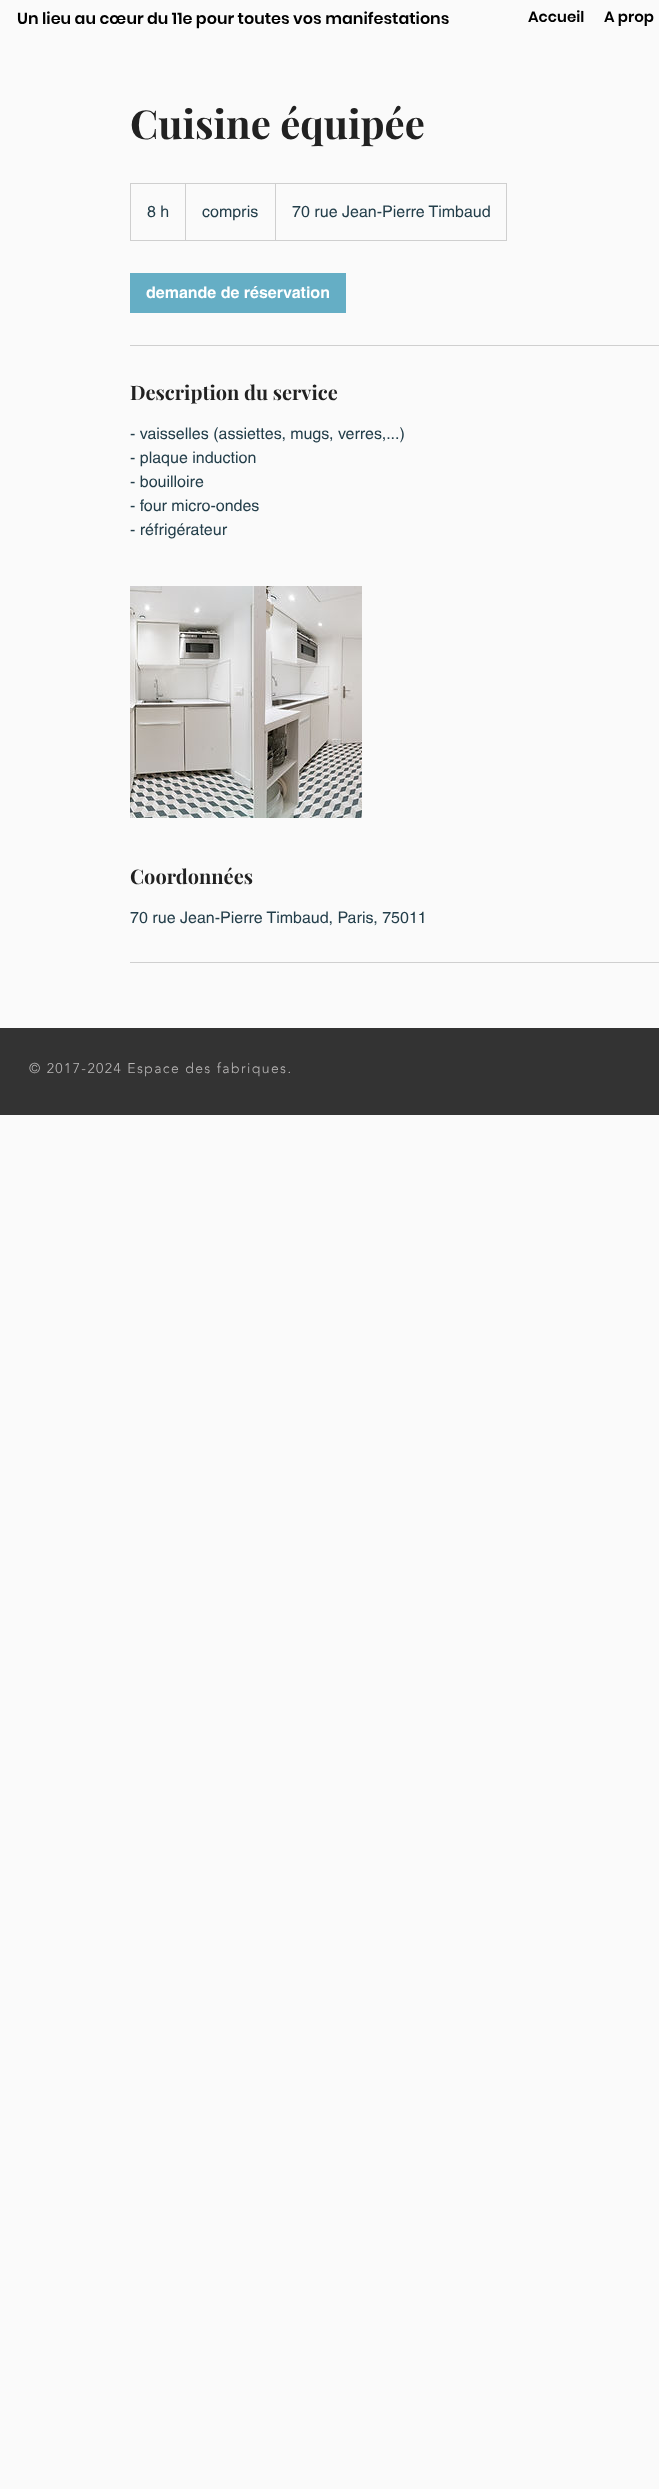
(async () => {
    const canvas = document.querySelector("canvas");
    canvas.width = 659;
    canvas.height = 2489;
    const context = canvas.getContext("2d");
    context.miterLimit = 4;
    context.fontKerning = "normal";
    function write(s, x, y, font, color) {
        context.font = font;
        context.fillStyle = color;
        context.fillText(s, x, y);
    }
    function block(x, y, w, h, color) {
        context.fillStyle = color;
        context.fillRect(x, y, w, h);
    }
    async function photo(src, x, y, w, h) {
        const img = new Image();
        img.src = src;
        await img.decode();
        context.drawImage(img, x, y, w, h);
    }

    block(0, 0, 659, 2489, "rgb(250, 250, 250)");
    write("Un lieu au cœur du 11e pour toutes vos manifestations", 17, 24, "600 16px Poppins", "rgb(0, 0, 0)");
    write("Accueil", 528, 22, "600 15px Poppins", "rgb(0, 0, 0)");
    write("A prop", 604, 22, "600 15px Poppins", "rgb(0, 0, 0)");
    write("Cuisine équipée", 130, 139, "bold 40px Playfair Display", "rgb(33, 33, 33)");
    context.strokeStyle = "rgb(207, 207, 207)";
    context.strokeRect(130.5, 183.5, 376, 57);
    write("8 h", 147, 217, "16px helvetica", "rgb(35, 62, 74)");
    context.fillStyle = "rgb(207, 207, 207)";
    context.beginPath();
    context.moveTo(185, 240);
    context.lineTo(185, 183);
    context.lineTo(186, 184);
    context.lineTo(186, 240);
    context.closePath();
    context.fill();
    write("compris", 202, 217, "16px helvetica", "rgb(35, 62, 74)");
    context.fillStyle = "rgb(207, 207, 207)";
    context.beginPath();
    context.moveTo(275, 240);
    context.lineTo(275, 183);
    context.lineTo(276, 184);
    context.lineTo(276, 240);
    context.closePath();
    context.fill();
    write("70 rue Jean-Pierre Timbaud", 292, 217, "16px helvetica", "rgb(35, 62, 74)");
    block(130, 273, 216, 40, "rgb(101, 174, 197)");
    write("demande de réservation", 146, 298, "bold 16px helvetica", "rgb(255, 255, 255)");
    block(130, 345, 529, 1, "rgb(207, 207, 207)");
    write("Description du service", 130, 400, "bold 20px Playfair Display", "rgb(33, 33, 33)");
    write("- vaisselles (assiettes, mugs, verres,...)", 130, 439, "16px helvetica", "rgb(35, 62, 74)");
    write("- plaque induction", 130, 463, "16px helvetica", "rgb(35, 62, 74)");
    write("- bouilloire", 130, 487, "16px helvetica", "rgb(35, 62, 74)");
    write("- four micro-ondes", 130, 511, "16px helvetica", "rgb(35, 62, 74)");
    write("- réfrigérateur", 130, 535, "16px helvetica", "rgb(35, 62, 74)");
    await photo("media/1.png", 130, 586, 232, 232);
    write("Coordonnées", 130, 884, "bold 20px Playfair Display", "rgb(33, 33, 33)");
    write("70 rue Jean-Pierre Timbaud, Paris, 75011", 130, 923, "16px helvetica", "rgb(35, 62, 74)");
    block(130, 962, 529, 1, "rgb(207, 207, 207)");
    block(0, 1028, 659, 87, "rgb(51, 51, 51)");
    context.letterSpacing = "1.4px";
    write("© 2017-2024 Espace des fabriques.", 29, 1073, "300 14px 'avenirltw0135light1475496'", "rgb(186, 184, 184)");
})();
